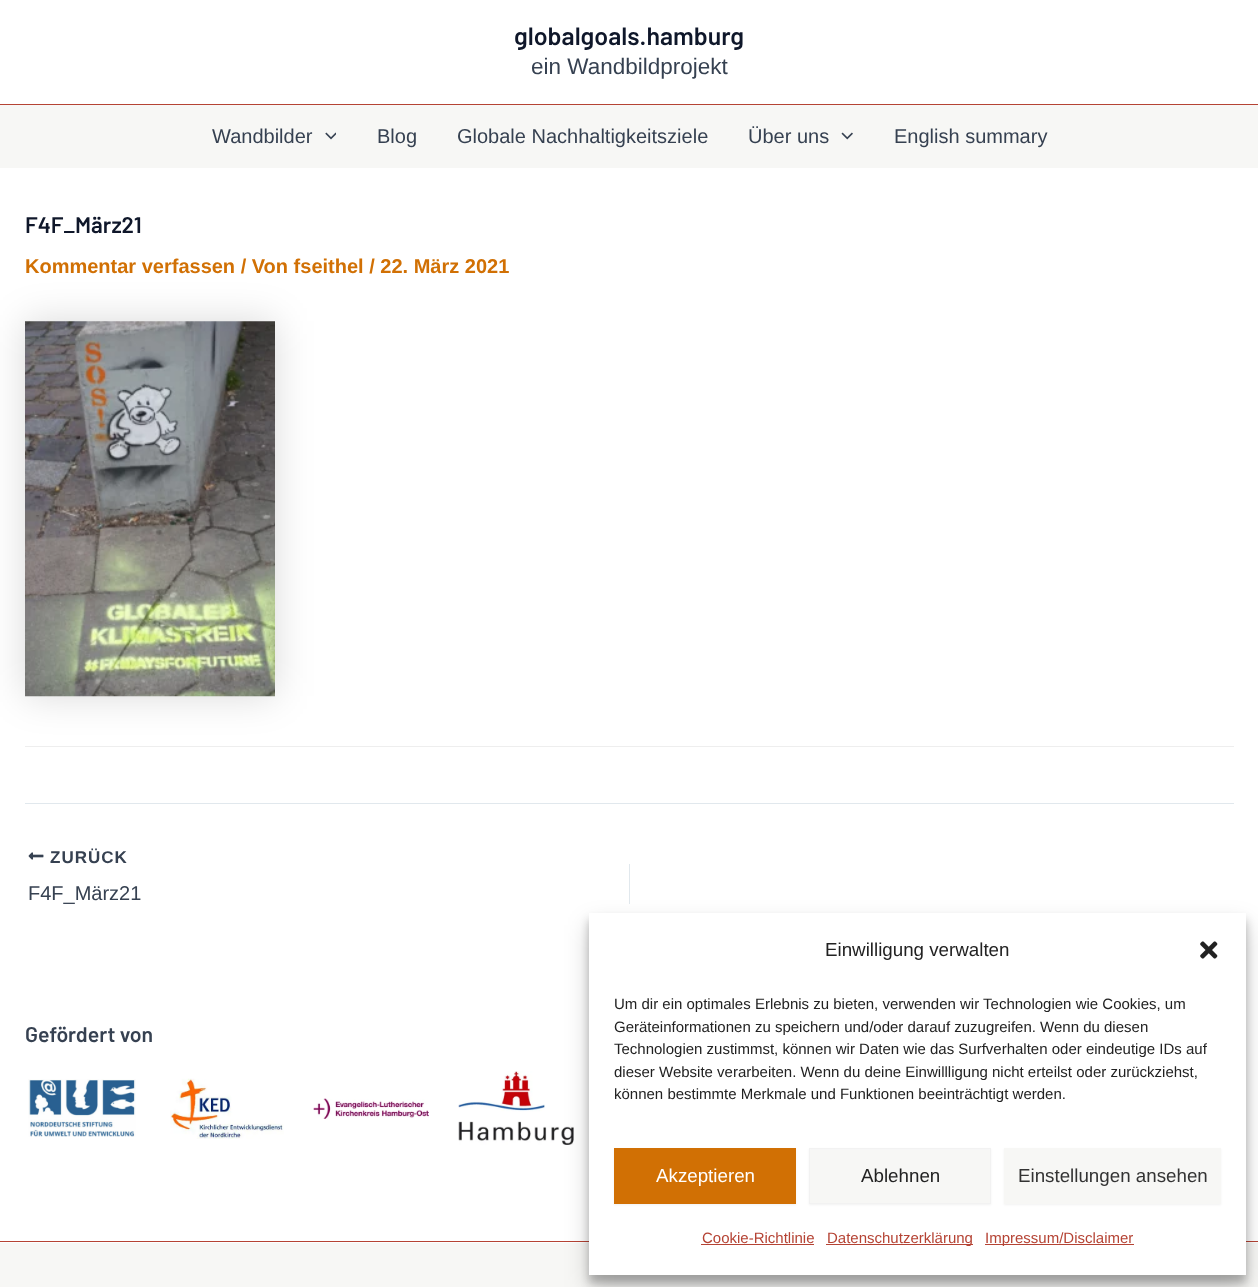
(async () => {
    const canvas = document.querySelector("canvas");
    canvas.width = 1258;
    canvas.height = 1287;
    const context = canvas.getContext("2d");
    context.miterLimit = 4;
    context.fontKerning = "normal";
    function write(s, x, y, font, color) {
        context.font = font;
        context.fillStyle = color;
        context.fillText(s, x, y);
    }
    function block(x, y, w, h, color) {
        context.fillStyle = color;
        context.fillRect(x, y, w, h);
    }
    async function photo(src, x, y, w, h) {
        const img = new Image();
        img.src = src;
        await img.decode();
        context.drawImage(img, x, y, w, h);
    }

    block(0, 0, 1258, 1287, "rgb(255, 255, 255)");
    block(0, 104, 1258, 1, "rgb(181, 67, 52)");
    write("globalgoals.hamburg", 514, 45, "600 25px Barlow", "rgb(15, 23, 42)");
    write("ein Wandbildprojekt", 531, 74, "22.5px Liberation Sans", "rgb(54, 65, 81)");
    block(0, 105, 1258, 63, "rgb(247, 247, 245)");
    write("Wandbilder", 212, 143, "20px Liberation Sans", "rgb(54, 65, 81)");
    await photo("media/1.png", 325, 132, 11, 8);
    write("Blog", 377, 143, "20px Liberation Sans", "rgb(54, 65, 81)");
    write("Globale Nachhaltigkeitsziele", 457, 143, "20px Liberation Sans", "rgb(54, 65, 81)");
    write("Über uns", 748, 143, "20px Liberation Sans", "rgb(54, 65, 81)");
    await photo("media/2.png", 841, 132, 12, 8);
    write("English summary", 894, 143, "20px Liberation Sans", "rgb(54, 65, 81)");
    write("F4F_März21", 25, 233, "600 22.5px Barlow", "rgb(15, 23, 42)");
    context.fillStyle = "rgba(0, 0, 0, 0.15)";
    context.filter = "blur(19px)";
    context.beginPath();
    context.rect(25, 321, 250, 375);
    context.fill();
    context.filter = "none";
    write("Kommentar verfassen / Von fseithel / 22. März 2021", 25, 273, "bold 20px Liberation Sans", "rgb(209, 112, 4)");
    await photo("media/3.png", 25, 321, 250, 376);
    block(25, 746, 1209, 1, "rgb(238, 238, 238)");
    block(25, 803, 1209, 1, "rgb(225, 232, 237)");
    await photo("media/4.png", 28, 852, 16, 8);
    context.letterSpacing = "1px";
    write("ZURÜCK", 50, 863, "bold 17px Liberation Sans", "rgb(54, 65, 81)");
    context.letterSpacing = "0px";
    write("F4F_März21", 28, 900, "20px Liberation Sans", "rgb(54, 65, 81)");
    block(629, 864, 1, 40, "rgb(225, 232, 237)");
    write("Gefördert von", 25, 1042, "600 21.25px Barlow", "rgb(54, 65, 81)");
    await photo("media/5.png", 28, 1079, 108, 58);
    await photo("media/6.png", 170, 1078, 114, 61);
    await photo("media/7.png", 313, 1098, 116, 21);
    await photo("media/8.png", 458, 1071, 116, 74);
    block(0, 1243, 1258, 44, "rgb(247, 247, 245)");
    block(0, 1241, 1258, 1, "rgb(181, 67, 52)");
    context.fillStyle = "rgba(0, 0, 0, 0.23)";
    context.filter = "blur(4px)";
    context.beginPath();
    context.rect(589, 920, 657, 363);
    context.fill();
    context.filter = "none";
    context.fillStyle = "rgba(0, 0, 0, 0.19)";
    context.filter = "blur(12.5px)";
    context.beginPath();
    context.rect(589, 925, 657, 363);
    context.fill();
    context.filter = "none";
    block(589, 913, 657, 362, "rgb(255, 255, 255)");
    write("Einwilligung verwalten", 825, 956, "18.75px Liberation Sans", "rgb(34, 34, 34)");
    await photo("media/9.png", 1200, 941, 18, 18);
    write("Um dir ein optimales Erlebnis zu bieten, verwenden wir Technologien wie Cookies, um", 614, 1009, "15px Liberation Sans", "rgb(34, 34, 34)");
    write("Geräteinformationen zu speichern und/oder darauf zuzugreifen. Wenn du diesen", 614, 1032, "15px Liberation Sans", "rgb(34, 34, 34)");
    write("Technologien zustimmst, können wir Daten wie das Surfverhalten oder eindeutige IDs auf", 614, 1054, "15px Liberation Sans", "rgb(34, 34, 34)");
    write("dieser Website verarbeiten. Wenn du deine Einwillligung nicht erteilst oder zurückziehst,", 614, 1077, "15px Liberation Sans", "rgb(34, 34, 34)");
    write("können bestimmte Merkmale und Funktionen beeinträchtigt werden.", 614, 1099, "15px Liberation Sans", "rgb(34, 34, 34)");
    context.fillStyle = "rgba(0, 0, 0, 0.05)";
    context.filter = "blur(1px)";
    context.beginPath();
    context.rect(614, 1149, 182, 56);
    context.fill();
    context.filter = "none";
    block(614, 1148, 182, 56, "rgb(209, 112, 4)");
    write("Akzeptieren", 656, 1182, "18.75px Liberation Sans", "rgb(255, 255, 255)");
    context.fillStyle = "rgba(0, 0, 0, 0.05)";
    context.filter = "blur(1px)";
    context.beginPath();
    context.rect(809, 1149, 182, 56);
    context.fill();
    context.filter = "none";
    block(810, 1150, 180, 53, "rgb(247, 247, 245)");
    context.strokeStyle = "rgb(242, 242, 242)";
    context.strokeRect(809.5, 1148.5, 181, 55);
    write("Ablehnen", 861, 1182, "18.75px Liberation Sans", "rgb(34, 34, 34)");
    context.fillStyle = "rgba(0, 0, 0, 0.05)";
    context.filter = "blur(1px)";
    context.beginPath();
    context.rect(1004, 1149, 217, 56);
    context.fill();
    context.filter = "none";
    block(1004, 1148, 217, 56, "rgb(247, 247, 245)");
    write("Einstellungen ansehen", 1018, 1182, "18.75px Liberation Sans", "rgb(51, 51, 51)");
    write("Cookie-Richtlinie", 702, 1243, "15px Liberation Sans", "rgb(181, 67, 52)");
    block(701, 1244, 113, 1, "rgb(181, 67, 52)");
    block(826, 1244, 147, 1, "rgb(181, 67, 52)");
    write("Datenschutzerklärung", 827, 1243, "15px Liberation Sans", "rgb(181, 67, 52)");
    block(985, 1244, 149, 1, "rgb(181, 67, 52)");
    write("Impressum/Disclaimer", 985, 1243, "15px Liberation Sans", "rgb(181, 67, 52)");
})();
